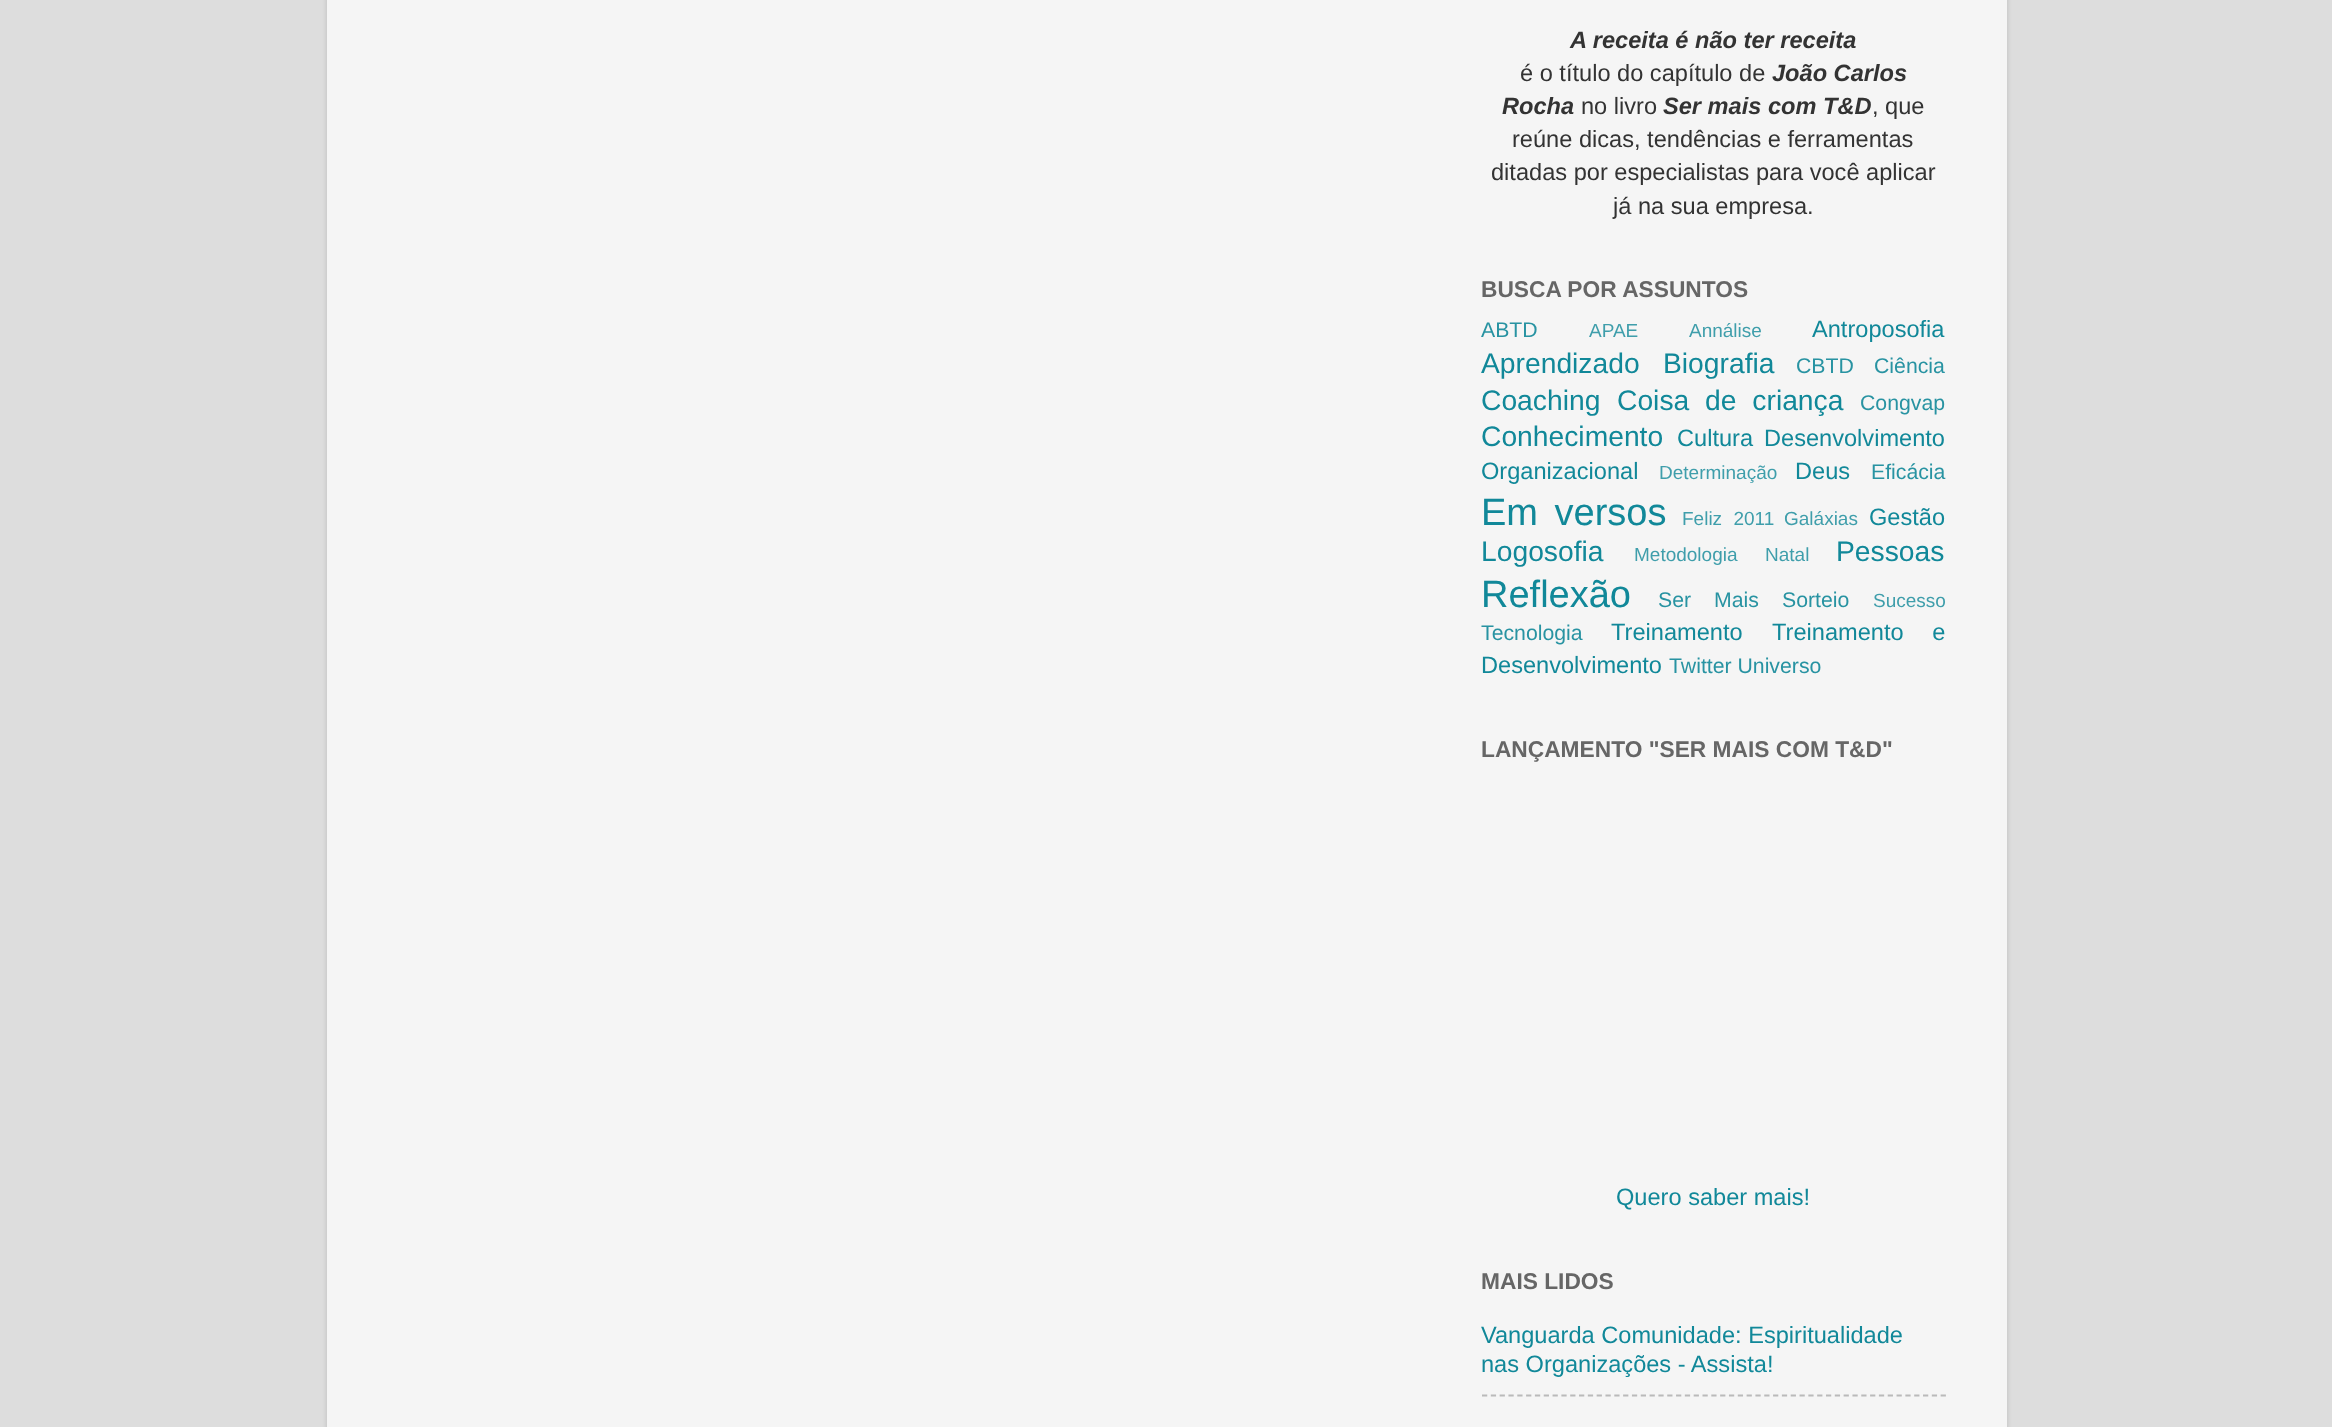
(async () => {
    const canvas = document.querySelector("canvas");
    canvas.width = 2332;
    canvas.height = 1427;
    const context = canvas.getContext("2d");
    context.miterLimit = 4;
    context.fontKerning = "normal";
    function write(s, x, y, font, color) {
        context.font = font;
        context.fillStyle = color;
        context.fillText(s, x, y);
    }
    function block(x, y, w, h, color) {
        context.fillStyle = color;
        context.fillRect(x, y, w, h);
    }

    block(0, 0, 2332, 1427, "rgb(221, 221, 221)");
    context.save();
    context.beginPath();
    context.moveTo(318, 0);
    context.lineTo(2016, 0);
    context.lineTo(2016, 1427);
    context.lineTo(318, 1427);
    context.closePath();
    context.moveTo(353, -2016);
    context.lineTo(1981, -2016);
    context.bezierCurveTo(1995.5, -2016, 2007, -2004.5, 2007, -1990);
    context.lineTo(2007, 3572);
    context.bezierCurveTo(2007, 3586.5, 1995.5, 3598, 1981, 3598);
    context.lineTo(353, 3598);
    context.bezierCurveTo(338.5, 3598, 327, 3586.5, 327, 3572);
    context.lineTo(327, -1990);
    context.bezierCurveTo(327, -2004.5, 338.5, -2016, 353, -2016);
    context.closePath();
    context.clip("evenodd");
    context.fillStyle = "rgba(0, 0, 0, 0.15)";
    context.filter = "blur(2.5px)";
    context.beginPath();
    context.roundRect(327, -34, 1680, 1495, 26);
    context.fill();
    context.filter = "none";
    context.restore();
    block(327, 0, 1680, 1427, "rgba(255, 255, 255, 0.7)");
    write("A receita é não ter receita", 1570, 48, "italic bold 23.6px Liberation Sans", "rgb(51, 51, 51)");
    write("é o título do capítulo de", 1520, 81, "23.6px Liberation Sans", "rgb(51, 51, 51)");
    write("João Carlos", 1772, 81, "italic bold 23.6px Liberation Sans", "rgb(51, 51, 51)");
    write("Rocha", 1502, 114, "italic bold 23.6px Liberation Sans", "rgb(51, 51, 51)");
    write("no livro", 1581, 114, "23.6px Liberation Sans", "rgb(51, 51, 51)");
    write("Ser mais com T&D", 1663, 114, "italic bold 23.6px Liberation Sans", "rgb(51, 51, 51)");
    write(", que", 1872, 114, "23.6px Liberation Sans", "rgb(51, 51, 51)");
    write("reúne dicas, tendências e ferramentas", 1512, 147, "23.6px Liberation Sans", "rgb(51, 51, 51)");
    write("ditadas por especialistas para você aplicar", 1491, 180, "23.6px Liberation Sans", "rgb(51, 51, 51)");
    write("já na sua empresa.", 1613, 214, "23.6px Liberation Sans", "rgb(51, 51, 51)");
    write("BUSCA POR ASSUNTOS", 1481, 297, "bold 22.75px Liberation Sans", "rgb(102, 102, 102)");
    write("ABTD", 1481, 337, "21.25px Liberation Sans", "rgb(40, 147, 162)");
    write("APAE", 1589, 337, "19px Liberation Sans", "rgb(63, 158, 171)");
    write("Annálise", 1689, 337, "19px Liberation Sans", "rgb(63, 158, 171)");
    write("Antroposofia", 1812, 337, "23.6px Liberation Sans", "rgb(17, 136, 153)");
    write("Aprendizado", 1481, 373, "28.25px Liberation Sans", "rgb(17, 136, 153)");
    write("Biografia", 1663, 373, "28.25px Liberation Sans", "rgb(17, 136, 153)");
    write("CBTD", 1796, 373, "21.25px Liberation Sans", "rgb(40, 147, 162)");
    write("Ciência", 1874, 373, "21.25px Liberation Sans", "rgb(40, 147, 162)");
    write("Coaching", 1481, 410, "28.25px Liberation Sans", "rgb(17, 136, 153)");
    context.wordSpacing = "8px";
    write("Coisa de criança", 1617, 410, "28.25px Liberation Sans", "rgb(17, 136, 153)");
    context.wordSpacing = "0px";
    write("Congvap", 1860, 410, "21.25px Liberation Sans", "rgb(40, 147, 162)");
    write("Conhecimento", 1481, 446, "28.25px Liberation Sans", "rgb(17, 136, 153)");
    write("Cultura", 1677, 446, "23.6px Liberation Sans", "rgb(17, 136, 153)");
    write("Desenvolvimento", 1764, 446, "23.6px Liberation Sans", "rgb(17, 136, 153)");
    write("Organizacional", 1481, 479, "23.6px Liberation Sans", "rgb(17, 136, 153)");
    write("Determinação", 1659, 479, "19px Liberation Sans", "rgb(63, 158, 171)");
    write("Deus", 1795, 479, "23.6px Liberation Sans", "rgb(17, 136, 153)");
    write("Eficácia", 1871, 479, "21.25px Liberation Sans", "rgb(40, 147, 162)");
    context.wordSpacing = "6px";
    write("Em versos", 1481, 525, "38px Liberation Sans", "rgb(17, 136, 153)");
    write("Feliz 2011", 1682, 525, "19px Liberation Sans", "rgb(63, 158, 171)");
    context.wordSpacing = "0px";
    write("Galáxias", 1784, 525, "19px Liberation Sans", "rgb(63, 158, 171)");
    write("Gestão", 1869, 525, "23.6px Liberation Sans", "rgb(17, 136, 153)");
    write("Logosofia", 1481, 561, "28.25px Liberation Sans", "rgb(17, 136, 153)");
    write("Metodologia", 1634, 561, "19px Liberation Sans", "rgb(63, 158, 171)");
    write("Natal", 1765, 561, "19px Liberation Sans", "rgb(63, 158, 171)");
    write("Pessoas", 1836, 561, "28.25px Liberation Sans", "rgb(17, 136, 153)");
    write("Reflexão", 1481, 607, "38px Liberation Sans", "rgb(17, 136, 153)");
    context.wordSpacing = "17px";
    write("Ser Mais", 1658, 607, "21.25px Liberation Sans", "rgb(40, 147, 162)");
    context.wordSpacing = "0px";
    write("Sorteio", 1782, 607, "21.25px Liberation Sans", "rgb(40, 147, 162)");
    write("Sucesso", 1873, 607, "19px Liberation Sans", "rgb(63, 158, 171)");
    write("Tecnologia", 1481, 640, "21.25px Liberation Sans", "rgb(40, 147, 162)");
    write("Treinamento", 1611, 640, "23.6px Liberation Sans", "rgb(17, 136, 153)");
    context.wordSpacing = "22px";
    write("Treinamento e", 1772, 640, "23.6px Liberation Sans", "rgb(17, 136, 153)");
    context.wordSpacing = "0px";
    write("Desenvolvimento", 1481, 673, "23.6px Liberation Sans", "rgb(17, 136, 153)");
    write("Twitter Universo", 1669, 673, "21.25px Liberation Sans", "rgb(40, 147, 162)");
    write("LANÇAMENTO \"SER MAIS COM T&D\"", 1481, 757, "bold 22.75px Liberation Sans", "rgb(102, 102, 102)");
    write("Quero saber mais!", 1616, 1205, "23.6px Liberation Sans", "rgb(17, 136, 153)");
    write("MAIS LIDOS", 1481, 1289, "bold 22.75px Liberation Sans", "rgb(102, 102, 102)");
    write("Vanguarda Comunidade: Espiritualidade", 1481, 1343, "23.6px Liberation Sans", "rgb(17, 136, 153)");
    write("nas Organizações - Assista!", 1481, 1372, "23.6px Liberation Sans", "rgb(17, 136, 153)");
    context.beginPath();
    context.moveTo(1482, 1395.5);
    context.lineTo(1946, 1395.5);
    context.strokeStyle = "rgb(186, 186, 186)";
    context.lineWidth = 1.8;
    context.setLineDash([5.25, 3.57]);
    context.stroke();
})();
